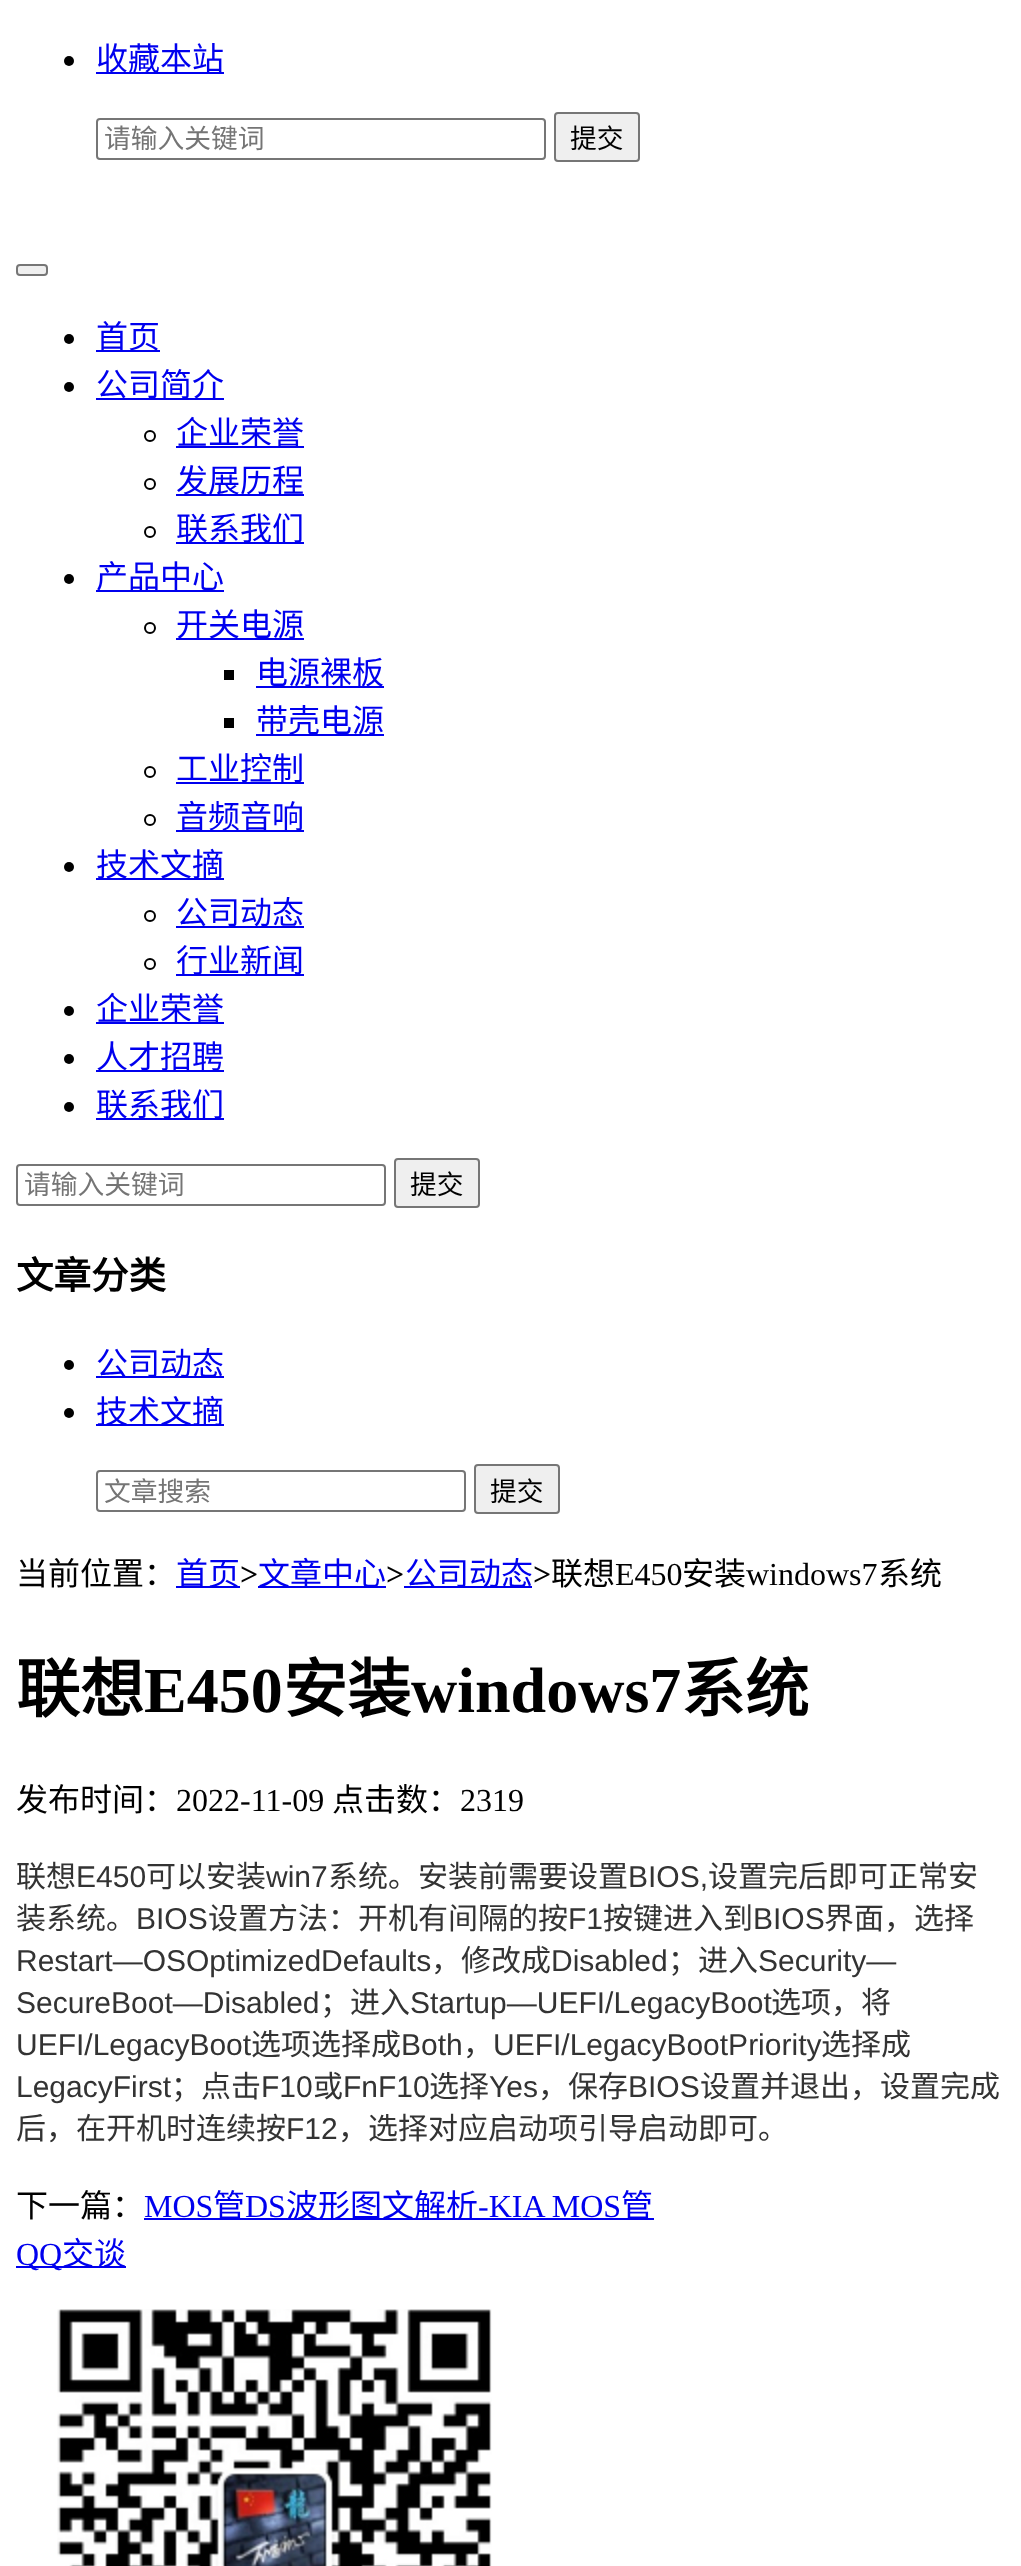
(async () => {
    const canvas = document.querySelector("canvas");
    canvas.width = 1021;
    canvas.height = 2566;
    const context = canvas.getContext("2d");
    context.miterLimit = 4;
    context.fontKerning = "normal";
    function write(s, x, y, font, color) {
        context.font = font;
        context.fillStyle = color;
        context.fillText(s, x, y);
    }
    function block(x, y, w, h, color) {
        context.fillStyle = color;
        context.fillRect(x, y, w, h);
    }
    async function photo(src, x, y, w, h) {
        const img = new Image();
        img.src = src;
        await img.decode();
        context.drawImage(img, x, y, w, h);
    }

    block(0, 0, 1021, 2566, "rgb(255, 255, 255)");
    context.fillStyle = "rgb(0, 0, 0)";
    context.beginPath();
    context.arc(69, 61, 5, 0, Math.PI * 2);
    context.fill();
    block(96, 72, 128, 2, "rgb(0, 0, 238)");
    write("收藏本站", 96, 70, "32px Noto Sans CJK SC", "rgb(0, 0, 238)");
    context.beginPath();
    context.roundRect(97, 119, 448, 40, 3);
    context.strokeStyle = "rgb(118, 118, 118)";
    context.lineWidth = 2;
    context.stroke();
    write("请输入关键词", 104, 148, "26.75px Noto Sans CJK SC", "rgb(117, 117, 117)");
    context.fillStyle = "rgb(239, 239, 239)";
    context.beginPath();
    context.roundRect(555, 113, 84, 48, 3);
    context.fill();
    context.stroke();
    write("提交", 570, 148, "26.75px Noto Sans CJK SC", "rgb(0, 0, 0)");
    context.fillStyle = "rgb(239, 239, 239)";
    context.beginPath();
    context.roundRect(17, 265, 30, 10, 3);
    context.fill();
    context.stroke();
    context.fillStyle = "rgb(0, 0, 0)";
    context.beginPath();
    context.arc(69, 339, 5, 0, Math.PI * 2);
    context.fill();
    block(96, 350, 64, 2, "rgb(0, 0, 238)");
    write("首页", 96, 348, "32px Noto Sans CJK SC", "rgb(0, 0, 238)");
    context.fillStyle = "rgb(0, 0, 0)";
    context.beginPath();
    context.arc(69, 387, 5, 0, Math.PI * 2);
    context.fill();
    block(96, 398, 128, 2, "rgb(0, 0, 238)");
    write("公司简介", 96, 396, "32px Noto Sans CJK SC", "rgb(0, 0, 238)");
    context.beginPath();
    context.arc(150, 436, 5, 0, Math.PI * 2);
    context.strokeStyle = "rgb(0, 0, 0)";
    context.stroke();
    block(176, 446, 128, 2, "rgb(0, 0, 238)");
    write("企业荣誉", 176, 444, "32px Noto Sans CJK SC", "rgb(0, 0, 238)");
    context.beginPath();
    context.arc(150, 484, 5, 0, Math.PI * 2);
    context.stroke();
    block(176, 494, 128, 2, "rgb(0, 0, 238)");
    write("发展历程", 176, 492, "32px Noto Sans CJK SC", "rgb(0, 0, 238)");
    context.beginPath();
    context.arc(150, 532, 5, 0, Math.PI * 2);
    context.stroke();
    block(176, 542, 128, 2, "rgb(0, 0, 238)");
    write("联系我们", 176, 540, "32px Noto Sans CJK SC", "rgb(0, 0, 238)");
    context.fillStyle = "rgb(0, 0, 0)";
    context.beginPath();
    context.arc(69, 579, 5, 0, Math.PI * 2);
    context.fill();
    block(96, 590, 128, 2, "rgb(0, 0, 238)");
    write("产品中心", 96, 588, "32px Noto Sans CJK SC", "rgb(0, 0, 238)");
    context.beginPath();
    context.arc(150, 628, 5, 0, Math.PI * 2);
    context.stroke();
    block(176, 638, 128, 2, "rgb(0, 0, 238)");
    write("开关电源", 176, 636, "32px Noto Sans CJK SC", "rgb(0, 0, 238)");
    block(224, 670, 10, 10, "rgb(0, 0, 0)");
    block(256, 686, 128, 2, "rgb(0, 0, 238)");
    write("电源裸板", 256, 684, "32px Noto Sans CJK SC", "rgb(0, 0, 238)");
    block(224, 718, 10, 10, "rgb(0, 0, 0)");
    block(256, 734, 128, 2, "rgb(0, 0, 238)");
    write("带壳电源", 256, 732, "32px Noto Sans CJK SC", "rgb(0, 0, 238)");
    context.beginPath();
    context.arc(150, 772, 5, 0, Math.PI * 2);
    context.stroke();
    block(176, 782, 128, 2, "rgb(0, 0, 238)");
    write("工业控制", 176, 780, "32px Noto Sans CJK SC", "rgb(0, 0, 238)");
    context.beginPath();
    context.arc(150, 820, 5, 0, Math.PI * 2);
    context.stroke();
    block(176, 830, 128, 2, "rgb(0, 0, 238)");
    write("音频音响", 176, 828, "32px Noto Sans CJK SC", "rgb(0, 0, 238)");
    context.fillStyle = "rgb(0, 0, 0)";
    context.beginPath();
    context.arc(69, 867, 5, 0, Math.PI * 2);
    context.fill();
    block(96, 878, 128, 2, "rgb(0, 0, 238)");
    write("技术文摘", 96, 876, "32px Noto Sans CJK SC", "rgb(0, 0, 238)");
    context.beginPath();
    context.arc(150, 916, 5, 0, Math.PI * 2);
    context.stroke();
    block(176, 926, 128, 2, "rgb(0, 0, 238)");
    write("公司动态", 176, 924, "32px Noto Sans CJK SC", "rgb(0, 0, 238)");
    context.beginPath();
    context.arc(150, 964, 5, 0, Math.PI * 2);
    context.stroke();
    block(176, 974, 128, 2, "rgb(0, 0, 238)");
    write("行业新闻", 176, 972, "32px Noto Sans CJK SC", "rgb(0, 0, 238)");
    context.fillStyle = "rgb(0, 0, 0)";
    context.beginPath();
    context.arc(69, 1011, 5, 0, Math.PI * 2);
    context.fill();
    block(96, 1022, 128, 2, "rgb(0, 0, 238)");
    write("企业荣誉", 96, 1020, "32px Noto Sans CJK SC", "rgb(0, 0, 238)");
    context.fillStyle = "rgb(0, 0, 0)";
    context.beginPath();
    context.arc(69, 1059, 5, 0, Math.PI * 2);
    context.fill();
    block(96, 1070, 128, 2, "rgb(0, 0, 238)");
    write("人才招聘", 96, 1068, "32px Noto Sans CJK SC", "rgb(0, 0, 238)");
    context.fillStyle = "rgb(0, 0, 0)";
    context.beginPath();
    context.arc(69, 1107, 5, 0, Math.PI * 2);
    context.fill();
    block(96, 1118, 128, 2, "rgb(0, 0, 238)");
    write("联系我们", 96, 1116, "32px Noto Sans CJK SC", "rgb(0, 0, 238)");
    context.beginPath();
    context.roundRect(17, 1165, 368, 40, 3);
    context.strokeStyle = "rgb(118, 118, 118)";
    context.stroke();
    write("请输入关键词", 24, 1194, "26.75px Noto Sans CJK SC", "rgb(117, 117, 117)");
    context.fillStyle = "rgb(239, 239, 239)";
    context.beginPath();
    context.roundRect(395, 1159, 84, 48, 3);
    context.fill();
    context.stroke();
    write("提交", 410, 1194, "26.75px Noto Sans CJK SC", "rgb(0, 0, 0)");
    write("文章分类", 16, 1289, "bold 37.5px Noto Sans CJK SC", "rgb(0, 0, 0)");
    context.beginPath();
    context.arc(69, 1365, 5, 0, Math.PI * 2);
    context.fill();
    block(96, 1376, 128, 2, "rgb(0, 0, 238)");
    write("公司动态", 96, 1375, "32px Noto Sans CJK SC", "rgb(0, 0, 238)");
    context.fillStyle = "rgb(0, 0, 0)";
    context.beginPath();
    context.arc(69, 1413, 5, 0, Math.PI * 2);
    context.fill();
    block(96, 1424, 128, 2, "rgb(0, 0, 238)");
    write("技术文摘", 96, 1423, "32px Noto Sans CJK SC", "rgb(0, 0, 238)");
    context.beginPath();
    context.roundRect(97, 1471, 368, 40, 3);
    context.stroke();
    write("文章搜索", 104, 1501, "26.75px Noto Sans CJK SC", "rgb(117, 117, 117)");
    context.fillStyle = "rgb(239, 239, 239)";
    context.beginPath();
    context.roundRect(475, 1465, 84, 48, 3);
    context.fill();
    context.stroke();
    write("提交", 490, 1501, "26.75px Noto Sans CJK SC", "rgb(0, 0, 0)");
    write("当前位置：", 16, 1585, "32px Noto Sans CJK SC", "rgb(0, 0, 0)");
    block(176, 1586, 64, 2, "rgb(0, 0, 238)");
    write("首页", 176, 1585, "32px Noto Sans CJK SC", "rgb(0, 0, 238)");
    write(">", 240, 1585, "bold 32px Liberation Serif", "rgb(0, 0, 0)");
    block(258, 1586, 128, 2, "rgb(0, 0, 238)");
    write("文章中心", 258, 1585, "32px Noto Sans CJK SC", "rgb(0, 0, 238)");
    write(">", 386, 1585, "bold 32px Liberation Serif", "rgb(0, 0, 0)");
    block(404, 1586, 128, 2, "rgb(0, 0, 238)");
    write("公司动态", 405, 1585, "32px Noto Sans CJK SC", "rgb(0, 0, 238)");
    write(">", 533, 1585, "bold 32px Liberation Serif", "rgb(0, 0, 0)");
    write("联想", 551, 1585, "32px Noto Sans CJK SC", "rgb(0, 0, 0)");
    write("E450", 615, 1585, "32px Liberation Serif", "rgb(0, 0, 0)");
    write("安装", 682, 1585, "32px Noto Sans CJK SC", "rgb(0, 0, 0)");
    write("windows7", 746, 1585, "32px Liberation Serif", "rgb(0, 0, 0)");
    write("系统", 878, 1585, "32px Noto Sans CJK SC", "rgb(0, 0, 0)");
    write("联想", 16, 1712, "bold 64px Noto Sans CJK SC", "rgb(0, 0, 0)");
    write("E450", 144, 1712, "bold 64px Liberation Serif", "rgb(0, 0, 0)");
    write("安装", 283, 1712, "bold 64px Noto Sans CJK SC", "rgb(0, 0, 0)");
    write("windows7", 411, 1712, "bold 64px Liberation Serif", "rgb(0, 0, 0)");
    write("系统", 681, 1712, "bold 64px Noto Sans CJK SC", "rgb(0, 0, 0)");
    write("发布时间：", 16, 1811, "32px Noto Sans CJK SC", "rgb(0, 0, 0)");
    write("2022-11-09", 176, 1811, "32px Liberation Serif", "rgb(0, 0, 0)");
    write("点击数：", 332, 1811, "32px Noto Sans CJK SC", "rgb(0, 0, 0)");
    write("2319", 460, 1811, "32px Liberation Serif", "rgb(0, 0, 0)");
    write("联想", 16, 1887, "30px Noto Sans CJK SC", "rgb(51, 51, 51)");
    write("E450", 76, 1887, "30px Liberation Sans", "rgb(51, 51, 51)");
    write("可以安装", 146, 1887, "30px Noto Sans CJK SC", "rgb(51, 51, 51)");
    write("win7", 266, 1887, "30px Liberation Sans", "rgb(51, 51, 51)");
    write("系统。安装前需要设置", 328, 1887, "30px Noto Sans CJK SC", "rgb(51, 51, 51)");
    write("BIOS,", 628, 1887, "30px Liberation Sans", "rgb(51, 51, 51)");
    write("设置完后即可正常安", 708, 1887, "30px Noto Sans CJK SC", "rgb(51, 51, 51)");
    write("装系统。", 16, 1929, "30px Noto Sans CJK SC", "rgb(51, 51, 51)");
    write("BIOS", 136, 1929, "30px Liberation Sans", "rgb(51, 51, 51)");
    write("设置方法：开机有间隔的按", 208, 1929, "30px Noto Sans CJK SC", "rgb(51, 51, 51)");
    write("F1", 568, 1929, "30px Liberation Sans", "rgb(51, 51, 51)");
    write("按键进入到", 603, 1929, "30px Noto Sans CJK SC", "rgb(51, 51, 51)");
    write("BIOS", 753, 1929, "30px Liberation Sans", "rgb(51, 51, 51)");
    write("界面，选择", 824, 1929, "30px Noto Sans CJK SC", "rgb(51, 51, 51)");
    write("Restart—OSOptimizedDefaults", 16, 1971, "30px Liberation Sans", "rgb(51, 51, 51)");
    write("，修改成", 431, 1971, "30px Noto Sans CJK SC", "rgb(51, 51, 51)");
    write("Disabled", 551, 1971, "30px Liberation Sans", "rgb(51, 51, 51)");
    write("；进入", 668, 1971, "30px Noto Sans CJK SC", "rgb(51, 51, 51)");
    write("Security—", 758, 1971, "30px Liberation Sans", "rgb(51, 51, 51)");
    write("SecureBoot—Disabled", 16, 2013, "30px Liberation Sans", "rgb(51, 51, 51)");
    write("；进入", 320, 2013, "30px Noto Sans CJK SC", "rgb(51, 51, 51)");
    write("Startup—UEFI/LegacyBoot", 410, 2013, "30px Liberation Sans", "rgb(51, 51, 51)");
    write("选项，将", 771, 2013, "30px Noto Sans CJK SC", "rgb(51, 51, 51)");
    write("UEFI/LegacyBoot", 16, 2055, "30px Liberation Sans", "rgb(51, 51, 51)");
    write("选项选择成", 251, 2055, "30px Noto Sans CJK SC", "rgb(51, 51, 51)");
    write("Both", 401, 2055, "30px Liberation Sans", "rgb(51, 51, 51)");
    write("，", 463, 2055, "30px Noto Sans CJK SC", "rgb(51, 51, 51)");
    write("UEFI/LegacyBootPriority", 493, 2055, "30px Liberation Sans", "rgb(51, 51, 51)");
    write("选择成", 821, 2055, "30px Noto Sans CJK SC", "rgb(51, 51, 51)");
    write("LegacyFirst", 16, 2097, "30px Liberation Sans", "rgb(51, 51, 51)");
    write("；点击", 171, 2097, "30px Noto Sans CJK SC", "rgb(51, 51, 51)");
    write("F10", 261, 2097, "30px Liberation Sans", "rgb(51, 51, 51)");
    write("或", 313, 2097, "30px Noto Sans CJK SC", "rgb(51, 51, 51)");
    write("FnF10", 343, 2097, "30px Liberation Sans", "rgb(51, 51, 51)");
    write("选择", 429, 2097, "30px Noto Sans CJK SC", "rgb(51, 51, 51)");
    write("Yes", 489, 2097, "30px Liberation Sans", "rgb(51, 51, 51)");
    write("，保存", 538, 2097, "30px Noto Sans CJK SC", "rgb(51, 51, 51)");
    write("BIOS", 628, 2097, "30px Liberation Sans", "rgb(51, 51, 51)");
    write("设置并退出，设置完成", 700, 2097, "30px Noto Sans CJK SC", "rgb(51, 51, 51)");
    write("后，在开机时连续按", 16, 2139, "30px Noto Sans CJK SC", "rgb(51, 51, 51)");
    write("F12", 286, 2139, "30px Liberation Sans", "rgb(51, 51, 51)");
    write("，选择对应启动项引导启动即可。", 338, 2139, "30px Noto Sans CJK SC", "rgb(51, 51, 51)");
    write("下一篇：", 16, 2217, "32px Noto Sans CJK SC", "rgb(0, 0, 0)");
    write("MOS", 144, 2217, "32px Liberation Serif", "rgb(0, 0, 238)");
    block(144, 2218, 510, 2, "rgb(0, 0, 238)");
    write("管", 213, 2217, "32px Noto Sans CJK SC", "rgb(0, 0, 238)");
    write("DS", 245, 2217, "32px Liberation Serif", "rgb(0, 0, 238)");
    write("波形图文解析", 286, 2217, "32px Noto Sans CJK SC", "rgb(0, 0, 238)");
    write("-KIA MOS", 478, 2217, "32px Liberation Serif", "rgb(0, 0, 238)");
    write("管", 621, 2217, "32px Noto Sans CJK SC", "rgb(0, 0, 238)");
    block(16, 2266, 110, 2, "rgb(0, 0, 238)");
    write("QQ", 16, 2265, "32px Liberation Serif", "rgb(0, 0, 238)");
    write("交谈", 62, 2265, "32px Noto Sans CJK SC", "rgb(0, 0, 238)");
    await photo("media/1.png", 57, 2309, 435, 257);
})();
